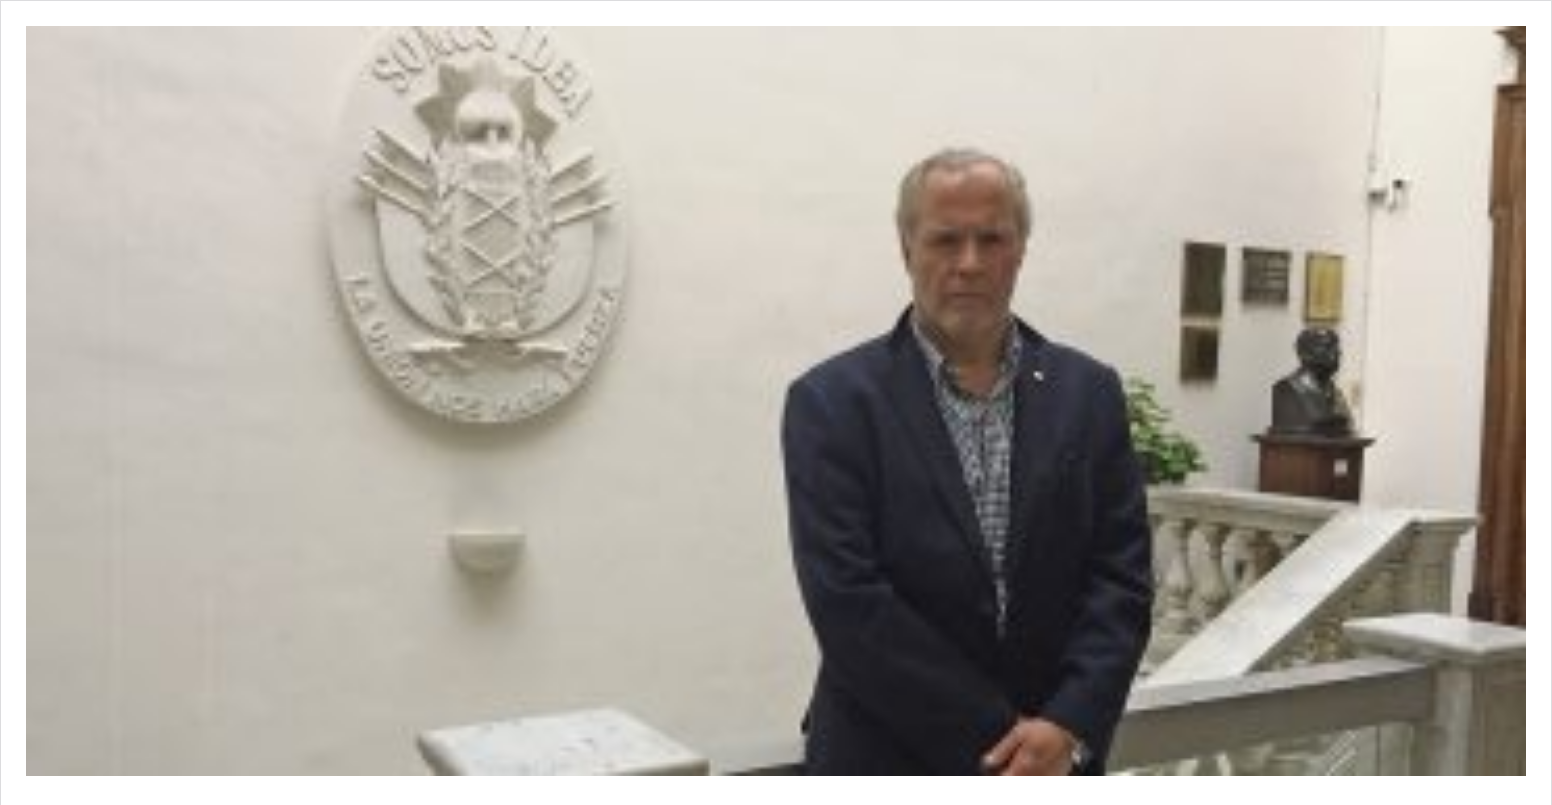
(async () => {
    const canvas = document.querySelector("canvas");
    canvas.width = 1552;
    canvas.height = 805;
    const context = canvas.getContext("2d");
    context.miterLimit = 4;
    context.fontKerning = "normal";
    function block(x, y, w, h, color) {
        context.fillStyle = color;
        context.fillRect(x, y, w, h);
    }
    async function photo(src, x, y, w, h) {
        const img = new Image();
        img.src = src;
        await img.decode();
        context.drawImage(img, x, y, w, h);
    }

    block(0, 0, 1552, 805, "rgb(255, 255, 255)");
    context.strokeStyle = "rgb(220, 220, 222)";
    context.strokeRect(0.5, 0.5, 1551, 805);
    await photo("media/1.png", 26, 26, 1500, 750);
})();
